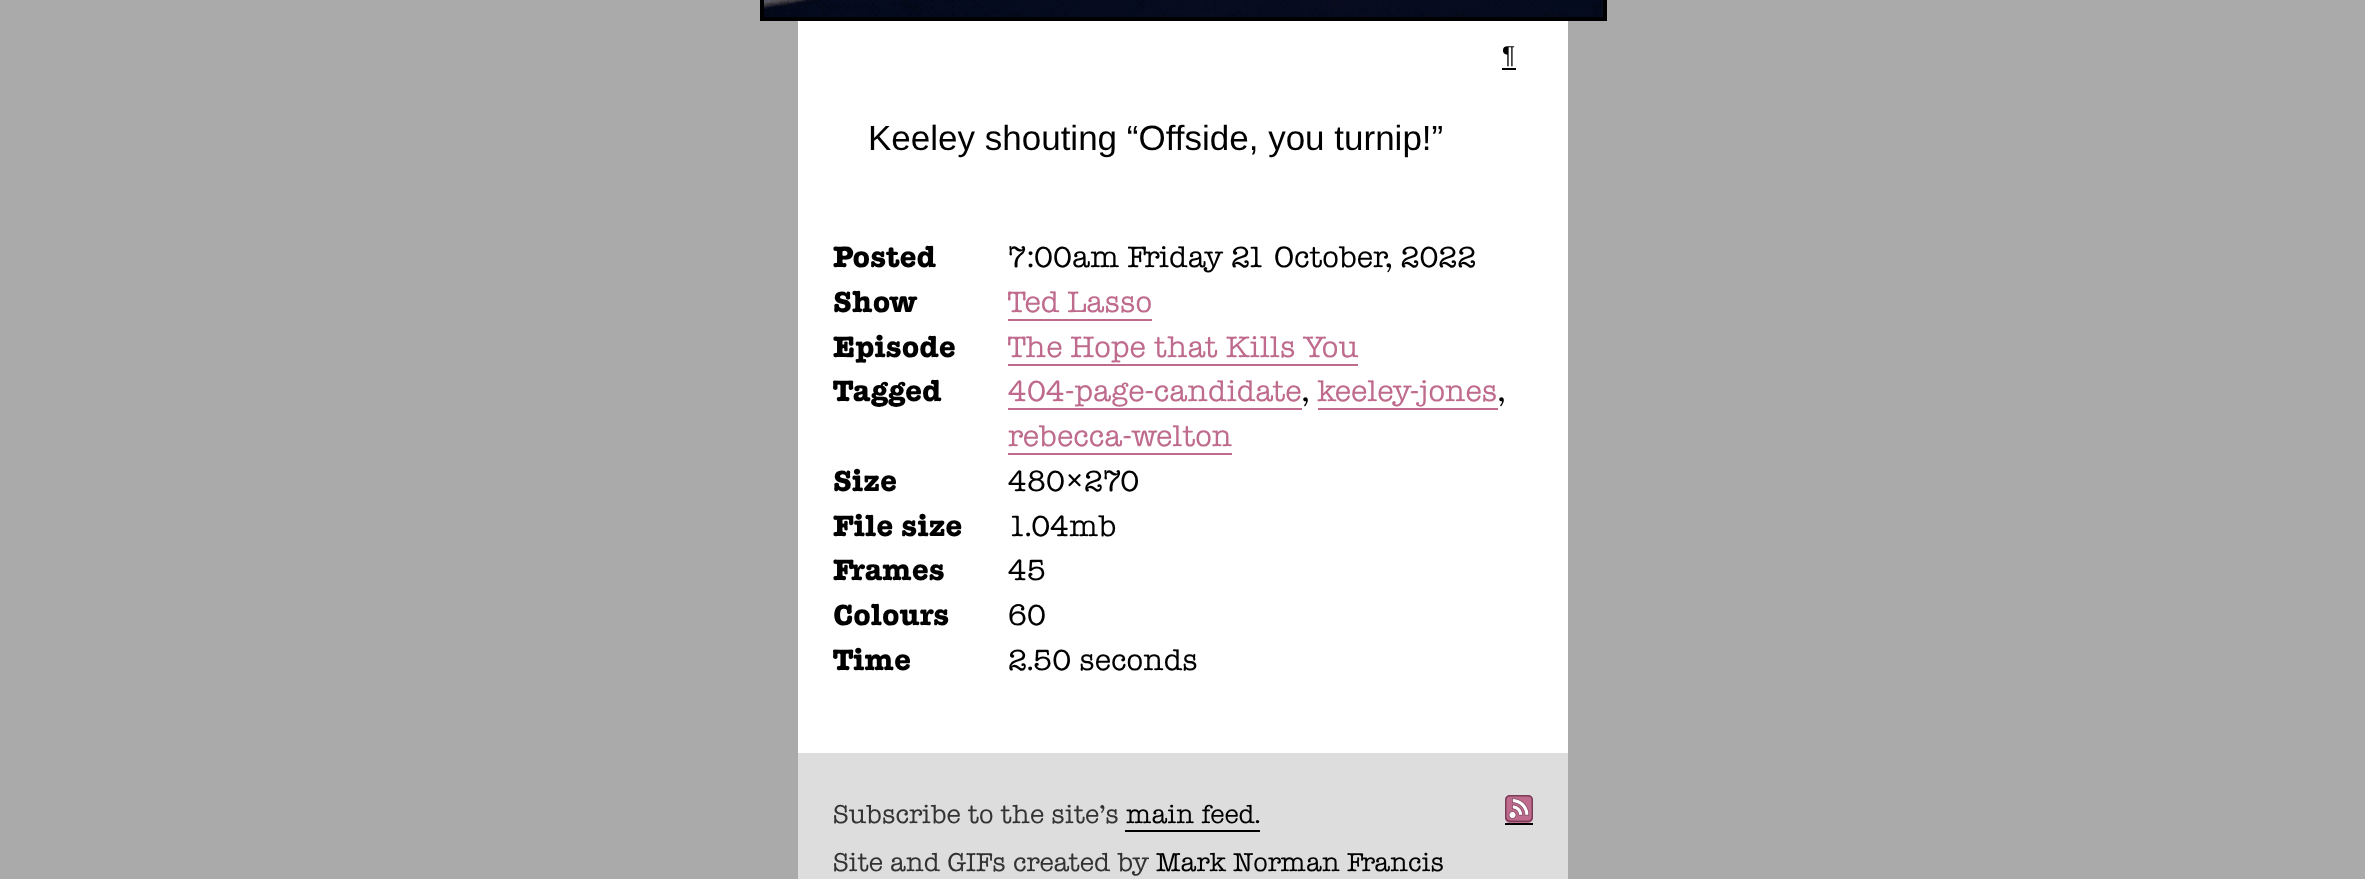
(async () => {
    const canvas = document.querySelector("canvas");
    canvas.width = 2365;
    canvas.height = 879;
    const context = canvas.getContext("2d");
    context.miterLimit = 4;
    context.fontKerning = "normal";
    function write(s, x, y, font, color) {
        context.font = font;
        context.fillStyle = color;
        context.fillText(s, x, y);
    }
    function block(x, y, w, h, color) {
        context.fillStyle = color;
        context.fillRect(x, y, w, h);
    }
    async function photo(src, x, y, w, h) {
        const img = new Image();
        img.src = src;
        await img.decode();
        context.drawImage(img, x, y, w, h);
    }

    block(0, 0, 2365, 879, "rgb(170, 170, 170)");
    block(798, 21, 770, 732, "rgb(255, 255, 255)");
    await photo("media/1.png", 764, 0, 839, 17);
    context.strokeStyle = "rgb(0, 0, 0)";
    context.lineWidth = 4;
    context.strokeRect(762, -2, 843, 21);
    write("¶", 1502, 63, "24.5px Liberation Sans", "rgb(0, 0, 0)");
    block(1502, 68, 14, 2, "rgb(0, 0, 0)");
    write("Keeley shouting “Offside, you turnip!”", 868, 150, "35px Liberation Sans", "rgb(0, 0, 0)");
    write("Posted", 833, 267, "800 28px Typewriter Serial", "rgb(0, 0, 0)");
    write("7:00am Friday 21 October, 2022", 1008, 267, "28px Typewriter Serial", "rgb(0, 0, 0)");
    write("Show", 833, 312, "800 28px Typewriter Serial", "rgb(0, 0, 0)");
    write("Ted Lasso", 1008, 312, "28px Typewriter Serial", "rgb(191, 107, 141)");
    block(1008, 319, 144, 2, "rgb(191, 107, 141)");
    write("Episode", 833, 357, "800 28px Typewriter Serial", "rgb(0, 0, 0)");
    write("The Hope that Kills You", 1008, 357, "28px Typewriter Serial", "rgb(191, 107, 141)");
    block(1008, 364, 350, 2, "rgb(191, 107, 141)");
    write("Tagged", 833, 401, "800 28px Typewriter Serial", "rgb(0, 0, 0)");
    write("404-page-candidate", 1008, 401, "28px Typewriter Serial", "rgb(191, 107, 141)");
    block(1008, 408, 294, 2, "rgb(191, 107, 141)");
    write(",", 1302, 401, "28px Typewriter Serial", "rgb(0, 0, 0)");
    write("keeley-jones", 1317, 401, "28px Typewriter Serial", "rgb(191, 107, 141)");
    block(1318, 408, 180, 2, "rgb(191, 107, 141)");
    write(",", 1498, 401, "28px Typewriter Serial", "rgb(0, 0, 0)");
    write("rebecca-welton", 1008, 446, "28px Typewriter Serial", "rgb(191, 107, 141)");
    block(1008, 453, 224, 2, "rgb(191, 107, 141)");
    write("Size", 833, 491, "800 28px Typewriter Serial", "rgb(0, 0, 0)");
    write("480×270", 1008, 491, "28px Typewriter Serial", "rgb(0, 0, 0)");
    write("File size", 833, 536, "800 28px Typewriter Serial", "rgb(0, 0, 0)");
    write("1.04mb", 1008, 536, "28px Typewriter Serial", "rgb(0, 0, 0)");
    write("Frames", 833, 580, "800 28px Typewriter Serial", "rgb(0, 0, 0)");
    write("45", 1008, 580, "28px Typewriter Serial", "rgb(0, 0, 0)");
    write("Colours", 833, 625, "800 28px Typewriter Serial", "rgb(0, 0, 0)");
    write("60", 1008, 625, "28px Typewriter Serial", "rgb(0, 0, 0)");
    write("Time", 833, 670, "800 28px Typewriter Serial", "rgb(0, 0, 0)");
    write("2.50 seconds", 1008, 670, "28px Typewriter Serial", "rgb(0, 0, 0)");
    block(798, 753, 770, 126, "rgb(221, 221, 221)");
    write("Subscribe to the site's", 833, 823, "24.5px Typewriter Serial", "rgb(51, 51, 51)");
    block(1505, 823, 28, 2, "rgb(0, 0, 0)");
    block(1125, 830, 135, 2, "rgb(0, 0, 0)");
    write("main feed.", 1126, 823, "24.5px Typewriter Serial", "rgb(0, 0, 0)");
    await photo("media/2.png", 1505, 795, 28, 28);
    write("Site and GIFs created by", 833, 871, "24.5px Typewriter Serial", "rgb(51, 51, 51)");
    write("Mark Norman Francis", 1156, 871, "24.5px Typewriter Serial", "rgb(0, 0, 0)");
})();
